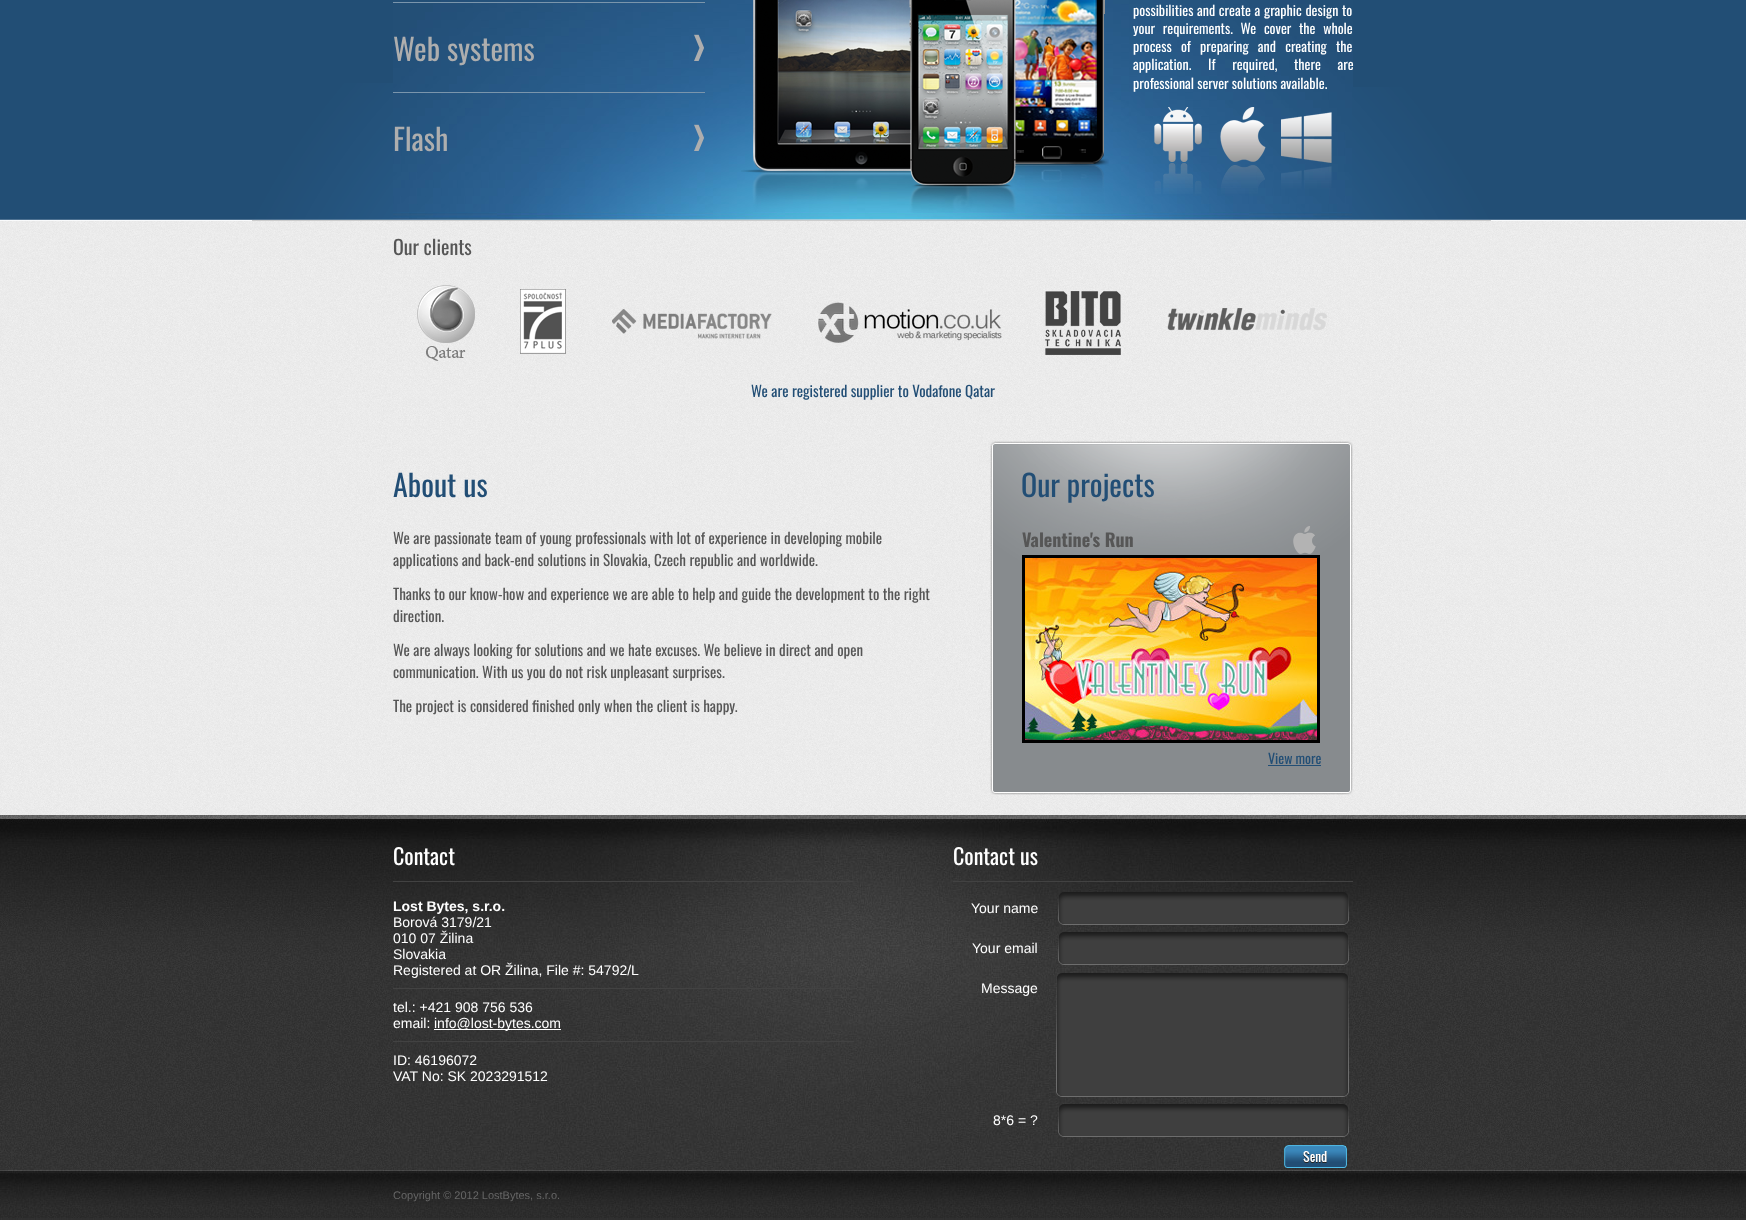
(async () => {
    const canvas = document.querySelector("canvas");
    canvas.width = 1746;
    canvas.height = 1220;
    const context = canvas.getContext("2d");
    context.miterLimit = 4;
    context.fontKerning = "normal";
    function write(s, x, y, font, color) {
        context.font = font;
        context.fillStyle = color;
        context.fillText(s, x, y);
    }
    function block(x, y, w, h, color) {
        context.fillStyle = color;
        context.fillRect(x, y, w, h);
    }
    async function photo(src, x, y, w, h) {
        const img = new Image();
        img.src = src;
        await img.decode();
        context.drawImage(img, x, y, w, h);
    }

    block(0, 0, 1746, 1220, "rgb(255, 255, 255)");
    await photo("media/1.png", 0, 0, 1746, 221);
    await photo("media/2.png", 393, 0, 960, 221);
    await photo("media/3.png", 252, 83, 141, 138);
    block(393, 2, 312, 1, "rgb(122, 149, 172)");
    await photo("media/4.png", 694, 34, 10, 27);
    block(393, 92, 312, 1, "rgb(122, 149, 172)");
    write("Web systems", 393, 61, "30px Oswald", "rgb(174, 174, 174)");
    await photo("media/5.png", 694, 124, 10, 27);
    write("Flash", 393, 151, "30px Oswald", "rgb(174, 174, 174)");
    await photo("media/6.png", 741, 0, 368, 213);
    context.wordSpacing = "0.5px";
    write("possibilities and create a graphic design to", 1133, 16, "14px Oswald", "rgb(255, 255, 255)");
    context.wordSpacing = "4.5px";
    write("your requirements. We cover the whole", 1133, 34, "14px Oswald", "rgb(255, 255, 255)");
    context.wordSpacing = "6px";
    write("process of preparing and creating the", 1133, 52, "14px Oswald", "rgb(255, 255, 255)");
    context.wordSpacing = "13.5px";
    write("application. If required, there are", 1133, 70, "14px Oswald", "rgb(255, 255, 255)");
    context.wordSpacing = "0px";
    write("professional server solutions available.", 1133, 89, "14px Oswald", "rgb(255, 255, 255)");
    await photo("media/7.png", 1154, 107, 178, 87);
    await photo("media/8.png", 1352, 87, 139, 134);
    await photo("media/9.png", 0, 221, 1746, 594);
    write("Our clients", 393, 255, "20px Oswald", "rgb(86, 86, 86)");
    await photo("media/10.png", 417, 285, 58, 76);
    await photo("media/11.png", 520, 289, 46, 65);
    await photo("media/12.png", 612, 309, 160, 30);
    await photo("media/13.png", 818, 302, 184, 41);
    await photo("media/14.png", 1045, 291, 76, 64);
    await photo("media/15.png", 1167, 308, 160, 23);
    write("We are registered supplier to Vodafone Qatar", 751, 397, "15px Oswald", "rgb(34, 78, 117)");
    write("About us", 393, 497, "30px Oswald", "rgb(34, 78, 117)");
    write("We are passionate team of young professionals with lot of experience in developing mobile", 393, 544, "15px Oswald", "rgb(86, 86, 86)");
    write("applications and back-end solutions in Slovakia, Czech republic and worldwide.", 393, 566, "15px Oswald", "rgb(86, 86, 86)");
    write("Thanks to our know-how and experience we are able to help and guide the development to the right", 393, 600, "15px Oswald", "rgb(86, 86, 86)");
    write("direction.", 393, 622, "15px Oswald", "rgb(86, 86, 86)");
    write("We are always looking for solutions and we hate excuses. We believe in direct and open", 393, 656, "15px Oswald", "rgb(86, 86, 86)");
    write("communication. With us you do not risk unpleasant surprises.", 393, 678, "15px Oswald", "rgb(86, 86, 86)");
    write("The project is considered finished only when the client is happy.", 393, 712, "15px Oswald", "rgb(86, 86, 86)");
    await photo("media/16.png", 990, 441, 363, 347);
    write("Our projects", 1021, 497, "30px Oswald", "rgb(34, 78, 117)");
    write("Valentine's Run", 1022, 547, "bold 18px Oswald", "rgb(86, 86, 86)");
    await photo("media/17.png", 1293, 526, 23, 28);
    context.strokeStyle = "rgb(0, 0, 0)";
    context.lineWidth = 3;
    context.strokeRect(1023.5, 556.5, 295, 185);
    await photo("media/18.png", 1025, 558, 292, 182);
    write("View more", 1268, 764, "14px Oswald", "rgb(34, 78, 117)");
    block(1268, 765, 53, 1, "rgb(34, 78, 117)");
    await photo("media/19.png", 990, 788, 363, 7);
    await photo("media/20.png", 0, 815, 1746, 405);
    await photo("media/21.png", 393, 815, 960, 355);
    write("Contact", 393, 865, "22px Oswald", "rgb(255, 255, 255)");
    block(393, 881, 460, 1, "rgb(66, 66, 66)");
    write("Lost Bytes, s.r.o.", 393, 911, "bold 14px Liberation Sans", "rgb(255, 255, 255)");
    write("Borová 3179/21", 393, 927, "14px Liberation Sans", "rgb(255, 255, 255)");
    write("010 07 Žilina", 393, 943, "14px Liberation Sans", "rgb(255, 255, 255)");
    write("Slovakia", 393, 959, "14px Liberation Sans", "rgb(255, 255, 255)");
    write("Registered at OR Žilina, File #: 54792/L", 393, 975, "14px Liberation Sans", "rgb(255, 255, 255)");
    block(393, 988, 454, 1, "rgb(66, 66, 66)");
    write("tel.: +421 908 756 536", 393, 1012, "14px Liberation Sans", "rgb(255, 255, 255)");
    write("email:", 393, 1028, "14px Liberation Sans", "rgb(255, 255, 255)");
    block(434, 1029, 127, 1, "rgb(255, 255, 255)");
    write("info@lost-bytes.com", 434, 1028, "14px Liberation Sans", "rgb(255, 255, 255)");
    block(393, 1041, 461, 1, "rgb(66, 66, 66)");
    write("ID: 46196072", 393, 1065, "14px Liberation Sans", "rgb(255, 255, 255)");
    write("VAT No: SK 2023291512", 393, 1081, "14px Liberation Sans", "rgb(255, 255, 255)");
    write("Contact us", 953, 865, "22px Oswald", "rgb(255, 255, 255)");
    block(953, 881, 400, 1, "rgb(66, 66, 66)");
    write("Your name", 971, 913, "14px Liberation Sans", "rgb(255, 255, 255)");
    await photo("media/22.png", 1058, 892, 291, 33);
    write("Your email", 972, 953, "14px Liberation Sans", "rgb(255, 255, 255)");
    await photo("media/23.png", 1058, 932, 291, 33);
    write("Message", 981, 993, "14px Liberation Sans", "rgb(255, 255, 255)");
    await photo("media/24.png", 1056, 973, 293, 124);
    write("8*6 = ?", 993, 1125, "14px Liberation Sans", "rgb(255, 255, 255)");
    await photo("media/25.png", 1058, 1104, 291, 33);
    await photo("media/26.png", 1284, 1145, 63, 24);
    write("Copyright © 2012 LostBytes, s.r.o.", 393, 1199, "11px Liberation Sans", "rgb(102, 102, 102)");
})();
